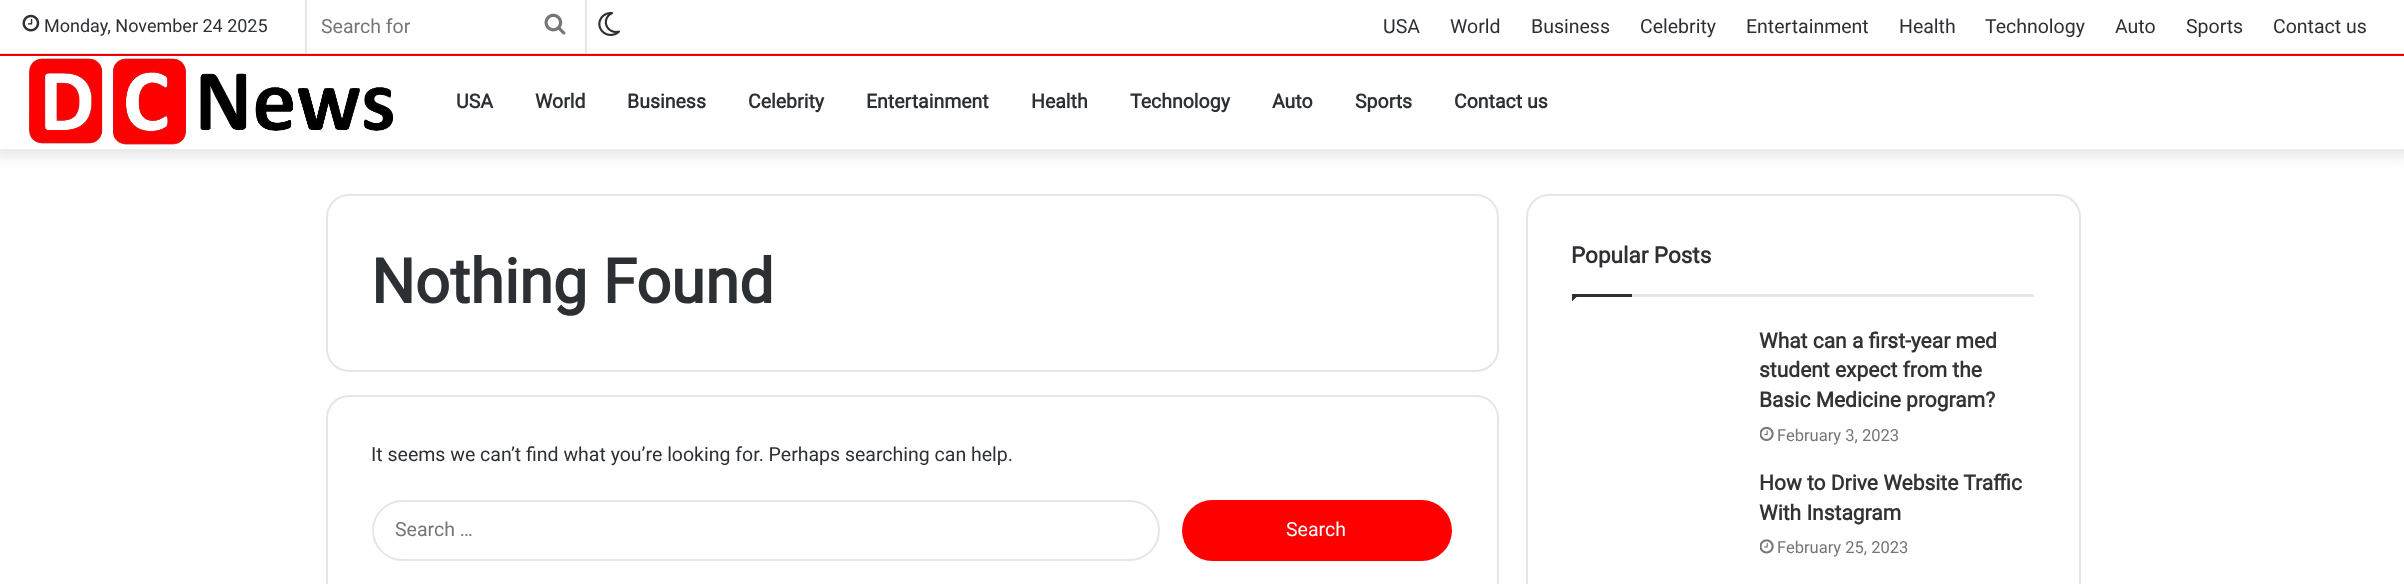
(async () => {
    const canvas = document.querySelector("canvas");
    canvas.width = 2404;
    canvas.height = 584;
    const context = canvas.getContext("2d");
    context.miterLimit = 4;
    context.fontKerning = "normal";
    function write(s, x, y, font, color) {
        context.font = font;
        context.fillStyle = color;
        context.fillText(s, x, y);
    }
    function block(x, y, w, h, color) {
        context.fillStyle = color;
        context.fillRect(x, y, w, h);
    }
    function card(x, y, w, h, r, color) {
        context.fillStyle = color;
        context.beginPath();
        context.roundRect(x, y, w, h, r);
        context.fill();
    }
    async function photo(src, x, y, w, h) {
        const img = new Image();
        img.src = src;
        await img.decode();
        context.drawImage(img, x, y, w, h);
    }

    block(0, 0, 2404, 584, "rgb(255, 255, 255)");
    context.fillStyle = "rgba(0, 0, 0, 0.1)";
    context.filter = "blur(7.5px)";
    context.beginPath();
    context.rect(-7, -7, 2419, 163);
    context.fill();
    context.filter = "none";
    block(0, 56, 2404, 93, "rgb(255, 255, 255)");
    block(0, 0, 2404, 53, "rgb(255, 255, 255)");
    block(0, 53, 2404, 1, "rgb(230, 230, 230)");
    await photo("media/1.png", 22, 14, 18, 18);
    write("Monday, November 24 2025", 44, 32, "18px Roboto", "rgb(44, 47, 52)");
    block(585, 0, 2, 53, "rgb(230, 230, 230)");
    block(305, 0, 2, 53, "rgb(230, 230, 230)");
    write("Search for", 321, 33, "19.5px Roboto", "rgb(117, 117, 117)");
    await photo("media/2.png", 544, 13, 22, 22);
    await photo("media/3.png", 598, 12, 22, 24);
    write("USA", 1383, 33, "19.5px Roboto", "rgb(44, 47, 52)");
    write("World", 1450, 33, "19.5px Roboto", "rgb(44, 47, 52)");
    write("Business", 1531, 33, "19.5px Roboto", "rgb(44, 47, 52)");
    write("Celebrity", 1640, 33, "19.5px Roboto", "rgb(44, 47, 52)");
    write("Entertainment", 1746, 33, "19.5px Roboto", "rgb(44, 47, 52)");
    write("Health", 1899, 33, "19.5px Roboto", "rgb(44, 47, 52)");
    write("Technology", 1985, 33, "19.5px Roboto", "rgb(44, 47, 52)");
    write("Auto", 2115, 33, "19.5px Roboto", "rgb(44, 47, 52)");
    write("Sports", 2186, 33, "19.5px Roboto", "rgb(44, 47, 52)");
    write("Contact us", 2273, 33, "19.5px Roboto", "rgb(44, 47, 52)");
    block(0, 55, 2404, 1, "rgb(255, 0, 0)");
    block(0, 54, 2404, 1, "rgb(230, 0, 0)");
    await photo("media/4.png", 29, 58, 365, 87);
    write("USA", 456, 108, "bold 19.5px Roboto", "rgb(44, 47, 52)");
    write("World", 535, 108, "bold 19.5px Roboto", "rgb(44, 47, 52)");
    write("Business", 627, 108, "bold 19.5px Roboto", "rgb(44, 47, 52)");
    write("Celebrity", 748, 108, "bold 19.5px Roboto", "rgb(44, 47, 52)");
    write("Entertainment", 866, 108, "bold 19.5px Roboto", "rgb(44, 47, 52)");
    write("Health", 1031, 108, "bold 19.5px Roboto", "rgb(44, 47, 52)");
    write("Technology", 1130, 108, "bold 19.5px Roboto", "rgb(44, 47, 52)");
    write("Auto", 1272, 108, "bold 19.5px Roboto", "rgb(44, 47, 52)");
    write("Sports", 1355, 108, "bold 19.5px Roboto", "rgb(44, 47, 52)");
    write("Contact us", 1454, 108, "bold 19.5px Roboto", "rgb(44, 47, 52)");
    context.beginPath();
    context.roundRect(327, 195, 1171, 176, 22);
    context.strokeStyle = "rgb(230, 230, 230)";
    context.lineWidth = 2;
    context.stroke();
    write("Nothing Found", 371, 303, "bold 61.5px Roboto", "rgb(44, 47, 52)");
    context.beginPath();
    context.roundRect(327, 396, 1171, 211, 22);
    context.stroke();
    write("It seems we can’t find what you’re looking for. Perhaps searching can help.", 371, 461, "19.5px Roboto", "rgb(44, 47, 52)");
    context.beginPath();
    context.roundRect(373, 501, 786, 59, 29.5);
    context.stroke();
    write("Search …", 395, 536, "19.5px Roboto", "rgb(117, 117, 117)");
    card(1182, 500, 270, 61, 30.5, "rgb(255, 0, 0)");
    write("Search", 1286, 536, "19.5px Roboto", "rgb(255, 255, 255)");
    context.beginPath();
    context.roundRect(1527, 195, 553, 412, 22);
    context.stroke();
    block(1632, 294, 402, 3, "rgb(230, 230, 230)");
    write("Popular Posts", 1571, 263, "bold 22.5px Roboto", "rgb(44, 47, 52)");
    context.beginPath();
    context.moveTo(1572, 294);
    context.lineTo(1579.5, 294);
    context.lineTo(1572, 301.5);
    context.closePath();
    context.fill();
    block(1572, 294, 60, 3, "rgb(44, 47, 52)");
    write("What can a first-year med", 1759, 348, "bold 21px Roboto", "rgb(51, 51, 51)");
    write("student expect from the", 1759, 377, "bold 21px Roboto", "rgb(51, 51, 51)");
    write("Basic Medicine program?", 1759, 407, "bold 21px Roboto", "rgb(51, 51, 51)");
    await photo("media/5.png", 1760, 426, 14, 15);
    write("February 3, 2023", 1777, 441, "16.5px Roboto", "rgb(117, 117, 117)");
    write("How to Drive Website Traffic", 1759, 490, "bold 21px Roboto", "rgb(51, 51, 51)");
    write("With Instagram", 1759, 520, "bold 21px Roboto", "rgb(51, 51, 51)");
    await photo("media/6.png", 1760, 539, 14, 15);
    write("February 25, 2023", 1777, 553, "16.5px Roboto", "rgb(117, 117, 117)");
})();
